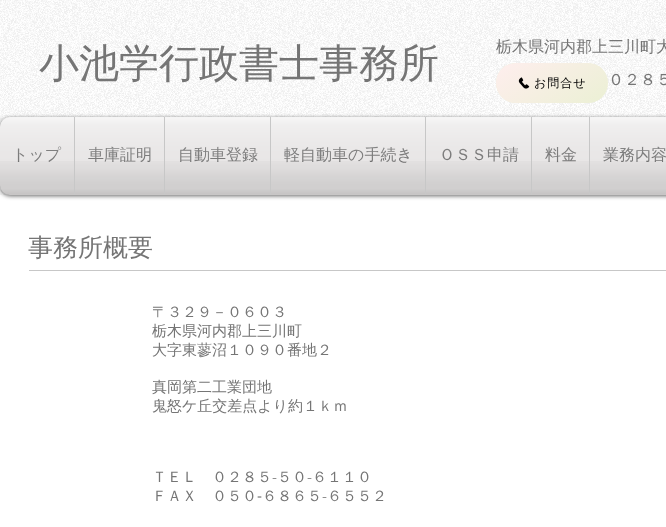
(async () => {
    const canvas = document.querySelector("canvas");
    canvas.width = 666;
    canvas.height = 527;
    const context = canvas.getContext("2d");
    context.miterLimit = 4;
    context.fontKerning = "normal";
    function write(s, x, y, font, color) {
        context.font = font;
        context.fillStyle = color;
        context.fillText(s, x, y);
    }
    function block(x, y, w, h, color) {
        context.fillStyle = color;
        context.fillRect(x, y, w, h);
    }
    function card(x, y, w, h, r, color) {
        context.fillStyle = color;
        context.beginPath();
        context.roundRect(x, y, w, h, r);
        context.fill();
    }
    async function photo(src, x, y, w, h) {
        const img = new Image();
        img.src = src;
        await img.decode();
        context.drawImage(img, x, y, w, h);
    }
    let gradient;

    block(0, 0, 666, 527, "rgb(255, 255, 255)");
    await photo("media/1.png", 0, 0, 666, 195);
    write("小池学行政書士事務所", 39, 77, "500 40px WenQuanYi Zen Hei", "rgb(117, 117, 117)");
    write("栃木県河内郡上三川町大", 496, 52, "500 16px WenQuanYi Zen Hei", "rgb(117, 117, 117)");
    card(496, 63, 112, 40, 20, "rgb(235, 240, 212)");
    gradient = context.createLinearGradient(524, 43, 580, 123);
    gradient.addColorStop(0, "rgb(255, 238, 238)");
    gradient.addColorStop(1, "rgba(255, 238, 238, 0)");
    context.fillStyle = gradient;
    context.beginPath();
    context.roundRect(496, 63, 112, 40, 20);
    context.fill();
    await photo("media/2.png", 518, 77, 12, 12);
    context.letterSpacing = "1px";
    write("お問合せ", 534, 87, "500 12px WenQuanYi Zen Hei", "rgb(0, 0, 0)");
    context.letterSpacing = "0px";
    write("０２８５", 608, 85, "500 16px WenQuanYi Zen Hei", "rgb(117, 117, 117)");
    context.fillStyle = "rgba(0, 0, 0, 0.6)";
    context.filter = "blur(2px)";
    context.beginPath();
    context.roundRect(0, 118, 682, 78, 10);
    context.fill();
    context.filter = "none";
    await photo("media/3.png", 0, 117, 10, 10);
    await photo("media/4.png", 0, 185, 10, 10);
    context.fillStyle = "rgb(232, 230, 230)";
    context.beginPath();
    context.roundRect(0, 117, 74, 78, [10, 0, 0, 10]);
    context.fill();
    write("トップ", 12, 160, "500 16px WenQuanYi Zen Hei", "rgb(117, 117, 117)");
    await photo("media/5.png", 0, 117, 74, 44);
    await photo("media/6.png", 0, 161, 74, 34);
    block(75, 117, 89, 78, "rgb(232, 230, 230)");
    block(74, 117, 1, 78, "rgb(199, 199, 199)");
    write("車庫証明", 88, 160, "500 16px WenQuanYi Zen Hei", "rgb(117, 117, 117)");
    await photo("media/7.png", 75, 117, 89, 44);
    await photo("media/8.png", 75, 161, 89, 34);
    block(165, 117, 105, 78, "rgb(232, 230, 230)");
    block(164, 117, 1, 78, "rgb(199, 199, 199)");
    write("自動車登録", 178, 160, "500 16px WenQuanYi Zen Hei", "rgb(117, 117, 117)");
    await photo("media/9.png", 165, 117, 105, 44);
    await photo("media/10.png", 165, 161, 105, 34);
    block(271, 117, 154, 78, "rgb(232, 230, 230)");
    block(270, 117, 1, 78, "rgb(199, 199, 199)");
    write("軽自動車の手続き", 284, 160, "500 16px WenQuanYi Zen Hei", "rgb(117, 117, 117)");
    await photo("media/11.png", 271, 117, 154, 44);
    await photo("media/12.png", 271, 161, 154, 34);
    block(426, 117, 105, 78, "rgb(232, 230, 230)");
    block(425, 117, 1, 78, "rgb(199, 199, 199)");
    write("ＯＳＳ申請", 439, 160, "500 16px WenQuanYi Zen Hei", "rgb(117, 117, 117)");
    await photo("media/13.png", 426, 117, 105, 44);
    await photo("media/14.png", 426, 161, 105, 34);
    block(532, 117, 57, 78, "rgb(232, 230, 230)");
    block(531, 117, 1, 78, "rgb(199, 199, 199)");
    write("料金", 545, 160, "500 16px WenQuanYi Zen Hei", "rgb(117, 117, 117)");
    await photo("media/15.png", 532, 117, 57, 44);
    await photo("media/16.png", 532, 161, 57, 34);
    block(590, 117, 76, 78, "rgb(232, 230, 230)");
    block(589, 117, 1, 78, "rgb(199, 199, 199)");
    write("業務内容", 603, 160, "500 16px WenQuanYi Zen Hei", "rgb(117, 117, 117)");
    await photo("media/17.png", 590, 117, 76, 44);
    await photo("media/18.png", 590, 161, 76, 34);
    write("事務所概要", 28, 256, "500 25px WenQuanYi Zen Hei", "rgb(117, 117, 117)");
    block(29, 270, 637, 1, "rgb(199, 199, 199)");
    write("〒３２９－０６０３", 152, 317, "500 15px WenQuanYi Zen Hei", "rgb(117, 117, 117)");
    write("栃木県河内郡上三川町", 152, 336, "500 15px WenQuanYi Zen Hei", "rgb(117, 117, 117)");
    write("大字東蓼沼１０９０番地２", 152, 355, "500 15px WenQuanYi Zen Hei", "rgb(117, 117, 117)");
    write("真岡第二工業団地", 152, 392, "500 15px WenQuanYi Zen Hei", "rgb(117, 117, 117)");
    write("鬼怒ケ丘交差点より約１ｋｍ", 152, 411, "500 15px WenQuanYi Zen Hei", "rgb(117, 117, 117)");
    write("ＴＥＬ　０２８５", 152, 482, "500 15px WenQuanYi Zen Hei", "rgb(117, 117, 117)");
    write("-", 272, 482, "300 15px 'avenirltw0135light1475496'", "rgb(117, 117, 117)");
    write("５０", 277, 482, "500 15px WenQuanYi Zen Hei", "rgb(117, 117, 117)");
    write("-", 307, 482, "300 15px 'avenirltw0135light1475496'", "rgb(117, 117, 117)");
    write("６１１０", 312, 482, "500 15px WenQuanYi Zen Hei", "rgb(117, 117, 117)");
    write("ＦＡＸ　０５０", 152, 501, "500 15px WenQuanYi Zen Hei", "rgb(117, 117, 117)");
    write("‐", 257, 501, "15px Liberation Sans", "rgb(117, 117, 117)");
    write("６８６５", 262, 501, "500 15px WenQuanYi Zen Hei", "rgb(117, 117, 117)");
    write("-", 322, 501, "300 15px 'avenirltw0135light1475496'", "rgb(117, 117, 117)");
    write("６５５２", 327, 501, "500 15px WenQuanYi Zen Hei", "rgb(117, 117, 117)");
})();
